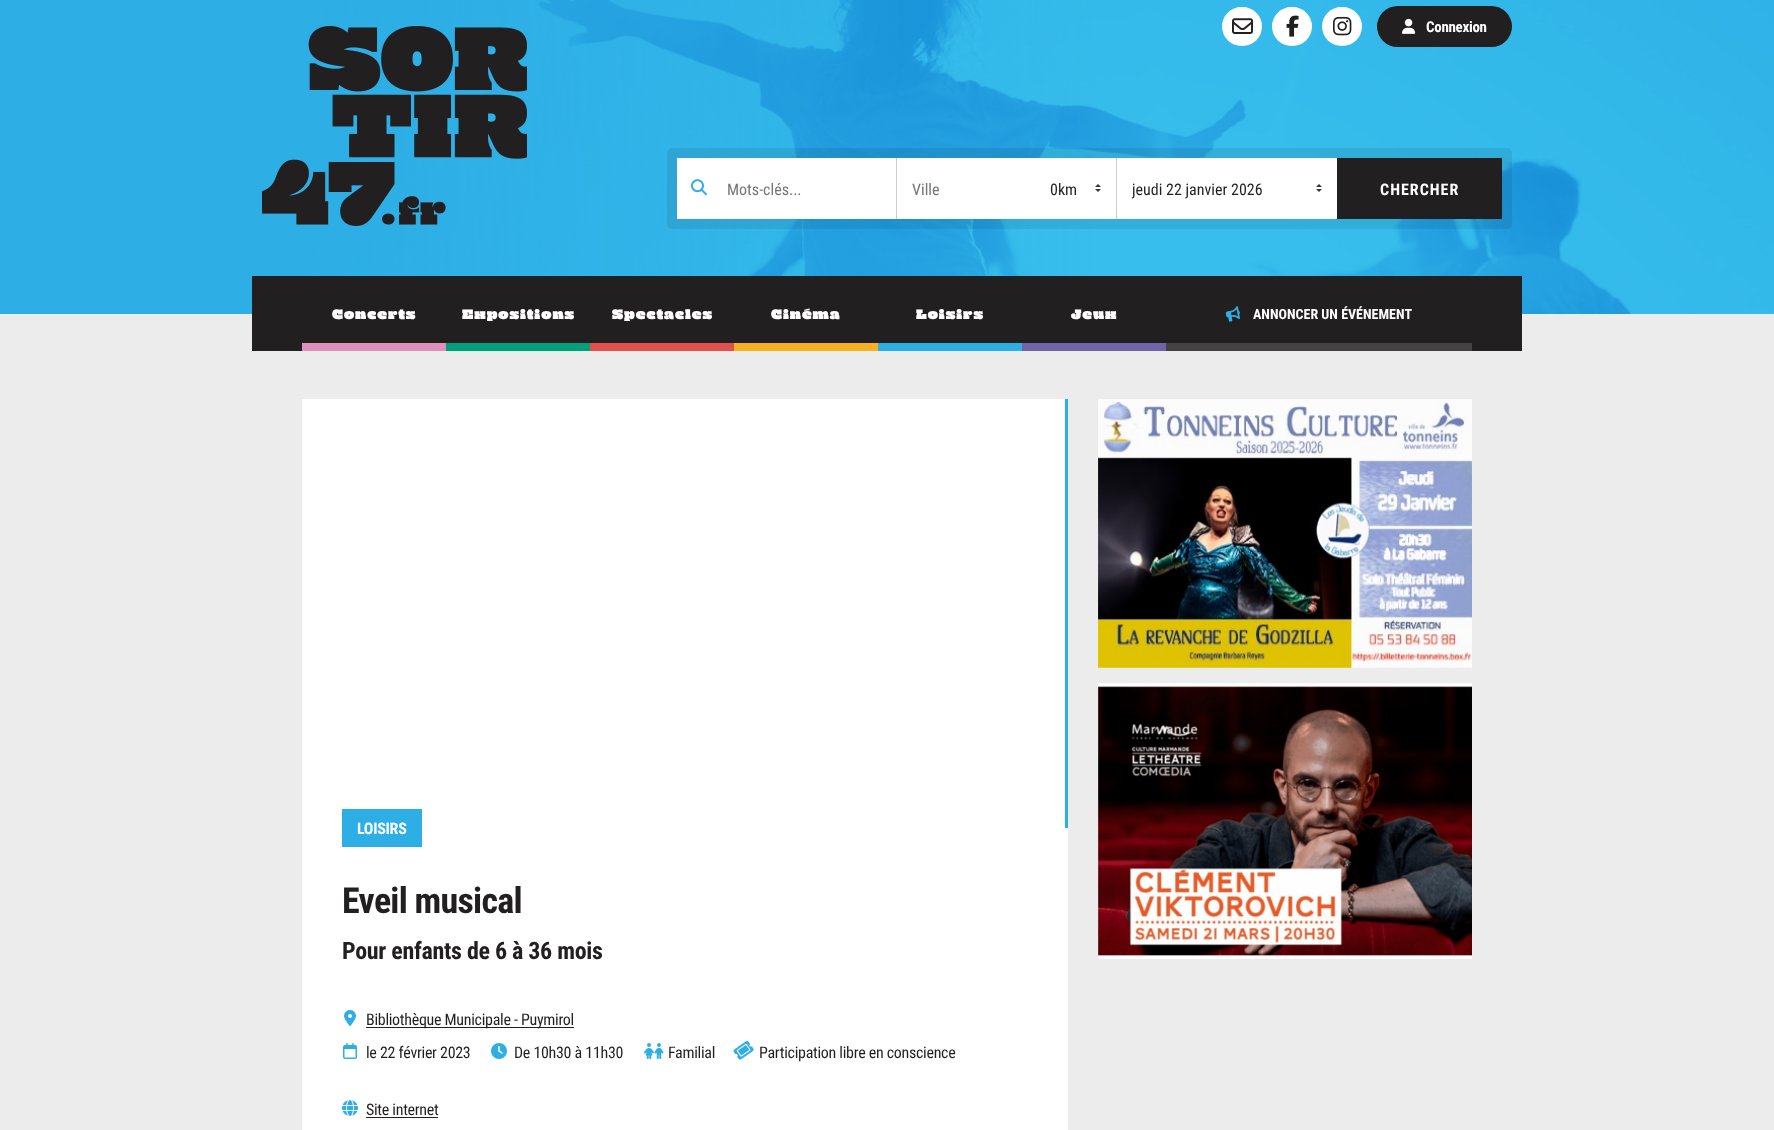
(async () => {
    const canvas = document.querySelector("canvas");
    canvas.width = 1774;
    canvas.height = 1130;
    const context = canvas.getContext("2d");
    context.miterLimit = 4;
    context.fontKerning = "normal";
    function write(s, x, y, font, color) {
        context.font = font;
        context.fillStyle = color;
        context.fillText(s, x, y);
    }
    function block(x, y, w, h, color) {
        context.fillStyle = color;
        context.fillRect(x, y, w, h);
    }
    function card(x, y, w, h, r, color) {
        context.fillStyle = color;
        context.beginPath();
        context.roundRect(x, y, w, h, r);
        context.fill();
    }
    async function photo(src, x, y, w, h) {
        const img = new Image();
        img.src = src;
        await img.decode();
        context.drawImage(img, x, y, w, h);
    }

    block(0, 0, 1774, 1130, "rgb(236, 236, 236)");
    block(0, 0, 308, 314, "rgb(45, 175, 230)");
    await photo("media/1.png", 308, 0, 1466, 314);
    await photo("media/2.png", 262, 26, 265, 200);
    card(1222, 7, 40, 39, 19.5, "rgb(255, 255, 255)");
    await photo("media/3.png", 1232, 18, 21, 16);
    card(1272, 7, 40, 39, 19.5, "rgb(255, 255, 255)");
    await photo("media/4.png", 1286, 15, 13, 22);
    card(1322, 7, 40, 39, 19.5, "rgb(255, 255, 255)");
    await photo("media/5.png", 1333, 16, 19, 20);
    card(1377, 6, 135, 41, 20.5, "rgb(34, 31, 32)");
    await photo("media/6.png", 1402, 18, 14, 16);
    context.letterSpacing = "-0.3px";
    write("Connexion", 1426, 32, "bold 15px Roboto Condensed", "rgb(255, 255, 255)");
    card(667, 148, 845, 81, 5, "rgba(0, 0, 0, 0.08)");
    block(677, 158, 219, 61, "rgb(255, 255, 255)");
    block(896, 158, 1, 61, "rgb(204, 204, 204)");
    await photo("media/7.png", 691, 179, 16, 17);
    context.letterSpacing = "0px";
    write("Mots-clés...", 727, 195, "16px Roboto Condensed", "rgb(117, 117, 117)");
    block(897, 158, 219, 61, "rgb(255, 255, 255)");
    write("Ville", 912, 195, "16px Roboto Condensed", "rgb(117, 117, 117)");
    block(1116, 158, 1, 61, "rgb(204, 204, 204)");
    await photo("media/8.png", 1095, 184, 6, 8);
    write("0km", 1050, 195, "16px Roboto Condensed", "rgb(34, 31, 32)");
    block(1117, 158, 220, 61, "rgb(255, 255, 255)");
    await photo("media/8.png", 1316, 184, 6, 8);
    write("jeudi 22 janvier 2026", 1132, 195, "16px Roboto Condensed", "rgb(34, 31, 32)");
    block(1337, 158, 165, 61, "rgb(34, 31, 32)");
    context.letterSpacing = "1px";
    write("CHERCHER", 1380, 195, "bold 16px Roboto Condensed", "rgb(255, 255, 255)");
    block(252, 276, 1270, 75, "rgb(34, 31, 32)");
    write("Concerts", 332, 319, "14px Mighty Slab", "rgb(255, 255, 255)");
    block(302, 343, 144, 8, "rgb(224, 143, 188)");
    write("Expositions", 462, 319, "14px Mighty Slab", "rgb(255, 255, 255)");
    block(446, 343, 144, 8, "rgb(0, 160, 122)");
    write("Spectacles", 612, 319, "14px Mighty Slab", "rgb(255, 255, 255)");
    block(590, 343, 144, 8, "rgb(226, 80, 77)");
    write("Cinéma", 771, 319, "14px Mighty Slab", "rgb(255, 255, 255)");
    block(734, 343, 144, 8, "rgb(249, 177, 34)");
    write("Loisirs", 916, 319, "14px Mighty Slab", "rgb(255, 255, 255)");
    block(878, 343, 144, 8, "rgb(45, 175, 230)");
    write("Jeux", 1071, 319, "14px Mighty Slab", "rgb(255, 255, 255)");
    block(1022, 343, 144, 8, "rgb(114, 99, 169)");
    await photo("media/9.png", 1225, 306, 15, 16);
    context.letterSpacing = "0px";
    write("ANNONCER UN ÉVÉNEMENT", 1253, 319, "bold 14px Roboto Condensed", "rgb(255, 255, 255)");
    block(1166, 343, 306, 8, "rgb(68, 66, 67)");
    block(302, 399, 766, 731, "rgb(255, 255, 255)");
    block(1065, 399, 3, 429, "rgb(45, 175, 230)");
    block(342, 809, 80, 38, "rgb(45, 175, 230)");
    context.letterSpacing = "-0.3px";
    write("LOISIRS", 357, 834, "bold 16px Roboto Condensed", "rgb(255, 255, 255)");
    context.letterSpacing = "-0.75px";
    write("Eveil musical", 342, 913, "bold 36px Roboto Condensed", "rgb(34, 31, 32)");
    context.letterSpacing = "-0.3px";
    write("Pour enfants de 6 à 36 mois", 342, 959, "bold 24px Roboto Condensed", "rgb(34, 31, 32)");
    await photo("media/10.png", 344, 1010, 12, 16);
    block(366, 1027, 208, 1, "rgb(34, 31, 32)");
    write("Bibliothèque Municipale - Puymirol", 366, 1025, "16px Roboto Condensed", "rgb(34, 31, 32)");
    await photo("media/11.png", 343, 1043, 14, 16);
    write("le 22 février 2023", 366, 1058, "16px Roboto Condensed", "rgb(34, 31, 32)");
    await photo("media/12.png", 491, 1043, 16, 16);
    write("De 10h30 à 11h30", 514, 1058, "16px Roboto Condensed", "rgb(34, 31, 32)");
    await photo("media/13.png", 644, 1043, 20, 16);
    write("Familial", 668, 1058, "16px Roboto Condensed", "rgb(34, 31, 32)");
    await photo("media/14.png", 733, 1041, 21, 19);
    write("Participation libre en conscience", 759, 1058, "16px Roboto Condensed", "rgb(34, 31, 32)");
    await photo("media/15.png", 342, 1100, 16, 16);
    write("Site internet", 366, 1115, "16px Roboto Condensed", "rgb(34, 31, 32)");
    block(366, 1117, 72, 1, "rgb(34, 31, 32)");
    await photo("media/16.png", 1098, 399, 374, 269);
    await photo("media/17.png", 1098, 683, 374, 276);
})();
